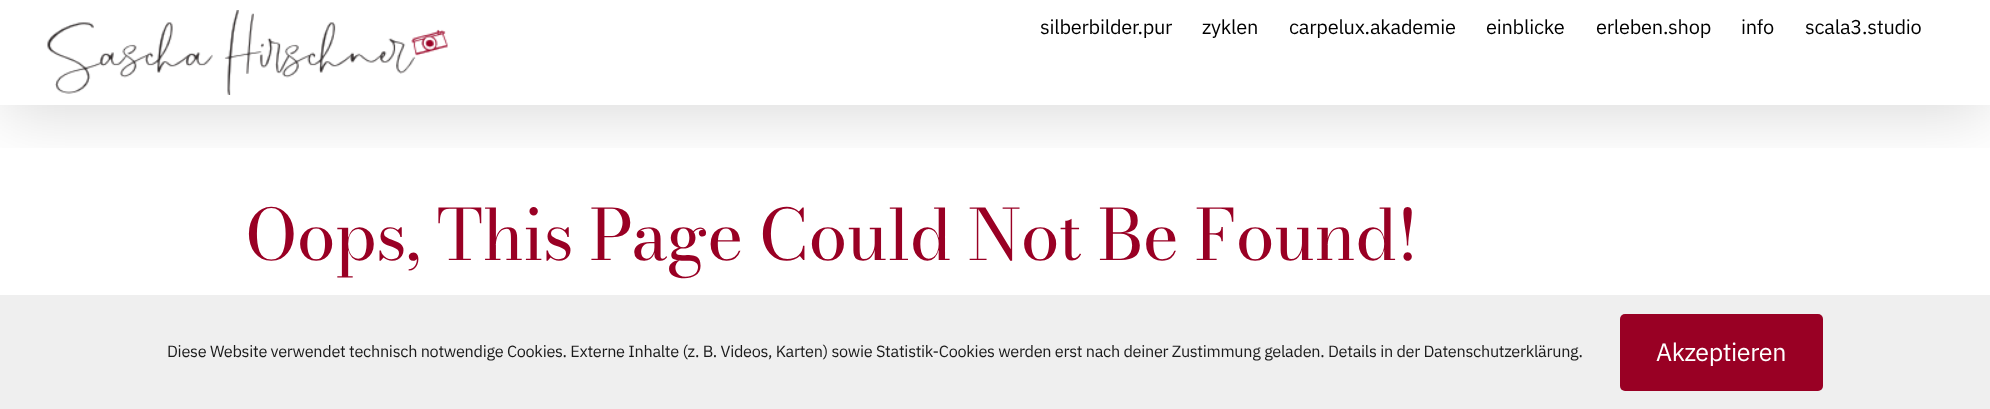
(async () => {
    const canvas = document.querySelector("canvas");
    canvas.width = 1990;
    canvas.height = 409;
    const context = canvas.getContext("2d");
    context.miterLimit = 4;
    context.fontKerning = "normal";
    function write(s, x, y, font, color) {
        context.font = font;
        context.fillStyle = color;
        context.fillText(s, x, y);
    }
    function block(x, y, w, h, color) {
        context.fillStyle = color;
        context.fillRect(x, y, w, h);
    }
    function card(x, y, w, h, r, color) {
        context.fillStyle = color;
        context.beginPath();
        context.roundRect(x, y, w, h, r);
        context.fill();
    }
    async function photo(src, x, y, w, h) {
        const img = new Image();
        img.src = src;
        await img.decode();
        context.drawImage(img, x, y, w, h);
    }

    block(0, 0, 1990, 409, "rgb(255, 255, 255)");
    context.save();
    context.beginPath();
    context.rect(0, 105, 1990, 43);
    context.clip();
    context.fillStyle = "rgba(0, 0, 0, 0.14)";
    context.filter = "blur(31px)";
    context.beginPath();
    context.rect(3, 15, 1985, 100);
    context.fill();
    context.filter = "none";
    context.restore();
    await photo("media/1.png", 47, 10, 401, 85);
    context.letterSpacing = "-0.25px";
    write("silberbilder.pur", 1040, 34, "20px IBM Plex Sans", "rgb(0, 0, 0)");
    write("zyklen", 1202, 34, "20px IBM Plex Sans", "rgb(0, 0, 0)");
    write("carpelux.akademie", 1289, 34, "20px IBM Plex Sans", "rgb(0, 0, 0)");
    write("einblicke", 1486, 34, "20px IBM Plex Sans", "rgb(0, 0, 0)");
    write("erleben.shop", 1596, 34, "20px IBM Plex Sans", "rgb(0, 0, 0)");
    write("info", 1741, 34, "20px IBM Plex Sans", "rgb(0, 0, 0)");
    write("scala3.studio", 1805, 34, "20px IBM Plex Sans", "rgb(0, 0, 0)");
    context.letterSpacing = "-1.05px";
    write("Oops, This Page Could Not Be Found!", 245, 260, "70px Bodoni Moda", "rgb(153, 0, 36)");
    block(0, 295, 1990, 114, "rgb(239, 239, 239)");
    context.letterSpacing = "-0.28px";
    write("Diese Website verwendet technisch notwendige Cookies. Externe Inhalte (z. B. Videos, Karten) sowie Statistik-Cookies werden erst nach deiner Zustimmung geladen. Details in der Datenschutzerklärung.", 167, 357, "16.25px IBM Plex Sans", "rgb(26, 26, 26)");
    card(1620, 314, 203, 77, 5, "rgb(153, 0, 36)");
    context.letterSpacing = "-0.4px";
    write("Akzeptieren", 1656, 361, "25px IBM Plex Sans", "rgb(255, 255, 255)");
})();
